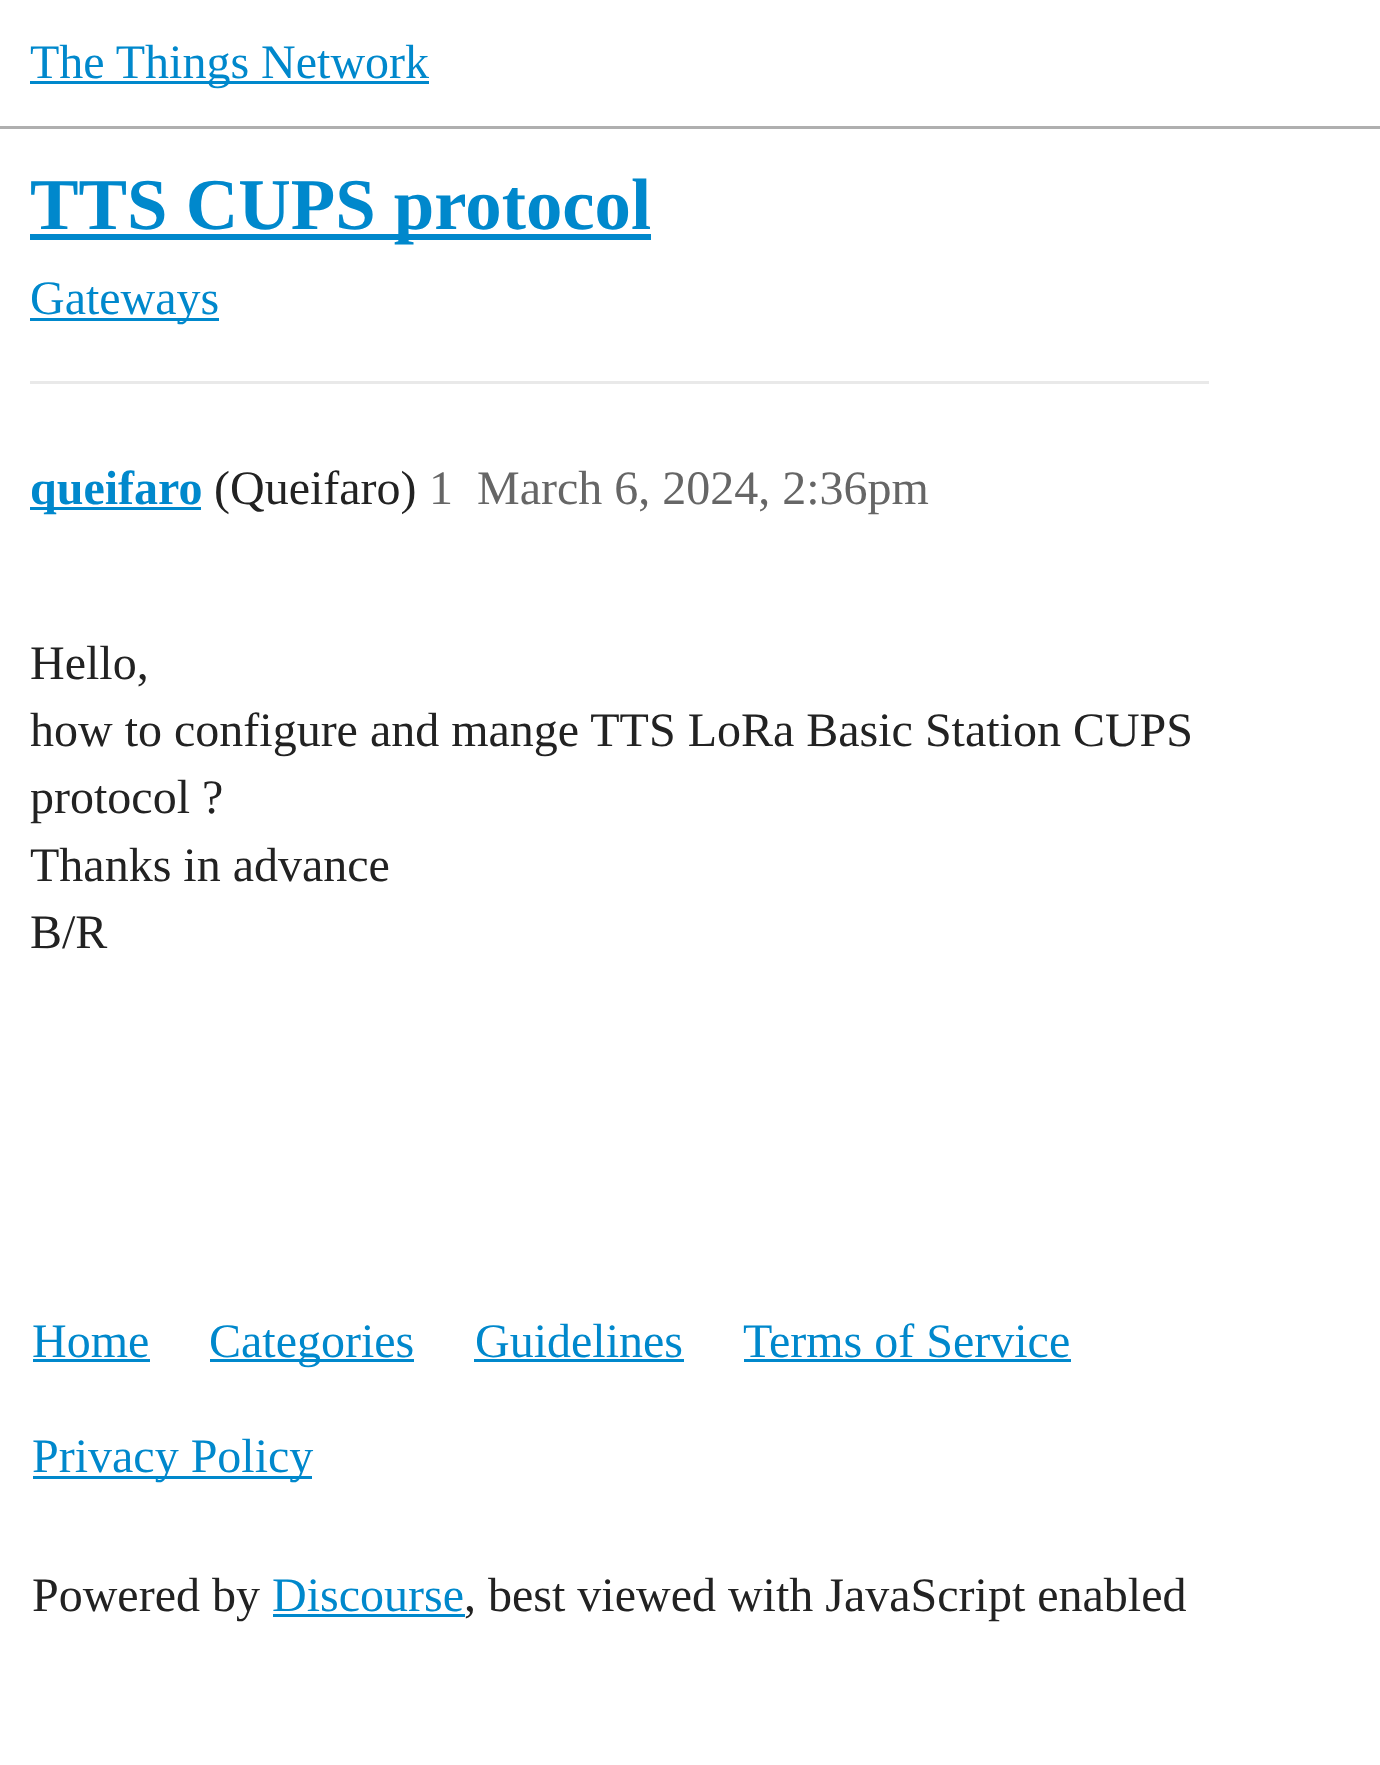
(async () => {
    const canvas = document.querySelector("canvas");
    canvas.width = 1380;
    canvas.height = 1765;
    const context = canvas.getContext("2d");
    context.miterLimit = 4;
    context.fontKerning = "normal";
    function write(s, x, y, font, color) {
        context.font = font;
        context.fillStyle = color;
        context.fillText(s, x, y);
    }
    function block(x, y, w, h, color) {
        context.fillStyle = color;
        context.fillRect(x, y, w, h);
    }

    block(0, 0, 1380, 1765, "rgb(255, 255, 255)");
    block(0, 126, 1380, 3, "rgb(175, 175, 175)");
    block(30, 81, 399, 3, "rgb(0, 136, 204)");
    write("The Things Network", 30, 78, "48px Liberation Serif", "rgb(0, 136, 204)");
    block(30, 234, 621, 6, "rgb(0, 136, 204)");
    write("TTS CUPS protocol", 30, 229, "bold 72.75px Liberation Serif", "rgb(0, 136, 204)");
    block(30, 318, 189, 3, "rgb(0, 136, 204)");
    write("Gateways", 30, 314, "48px Liberation Serif", "rgb(0, 136, 204)");
    block(30, 381, 1179, 3, "rgb(233, 233, 233)");
    block(30, 507, 171, 3, "rgb(0, 136, 204)");
    write("queifaro", 30, 504, "bold 48px Liberation Serif", "rgb(0, 136, 204)");
    write("(Queifaro)", 214, 504, "48px Liberation Serif", "rgb(34, 34, 34)");
    write("1", 429, 504, "48px Liberation Serif", "rgb(102, 102, 102)");
    write("March 6, 2024, 2:36pm", 477, 504, "48px Liberation Serif", "rgb(102, 102, 102)");
    write("Hello,", 30, 679, "48px Liberation Serif", "rgb(34, 34, 34)");
    write("how to configure and mange TTS LoRa Basic Station CUPS", 30, 746, "48px Liberation Serif", "rgb(34, 34, 34)");
    write("protocol ?", 30, 813, "48px Liberation Serif", "rgb(34, 34, 34)");
    write("Thanks in advance", 30, 881, "48px Liberation Serif", "rgb(34, 34, 34)");
    write("B/R", 30, 948, "48px Liberation Serif", "rgb(34, 34, 34)");
    write("Home", 32, 1357, "48px Liberation Serif", "rgb(0, 136, 204)");
    block(33, 1359, 117, 3, "rgb(0, 136, 204)");
    block(210, 1359, 204, 3, "rgb(0, 136, 204)");
    write("Categories", 209, 1357, "48px Liberation Serif", "rgb(0, 136, 204)");
    write("Guidelines", 475, 1357, "48px Liberation Serif", "rgb(0, 136, 204)");
    block(474, 1359, 210, 3, "rgb(0, 136, 204)");
    write("Terms of Service", 743, 1357, "48px Liberation Serif", "rgb(0, 136, 204)");
    block(744, 1359, 327, 3, "rgb(0, 136, 204)");
    block(33, 1476, 279, 3, "rgb(0, 136, 204)");
    write("Privacy Policy", 32, 1472, "48px Liberation Serif", "rgb(0, 136, 204)");
    write("Powered by", 32, 1611, "48px Liberation Serif", "rgb(34, 34, 34)");
    write("Discourse", 272, 1611, "48px Liberation Serif", "rgb(0, 136, 204)");
    block(273, 1614, 192, 3, "rgb(0, 136, 204)");
    write(", best viewed with JavaScript enabled", 464, 1611, "48px Liberation Serif", "rgb(34, 34, 34)");
})();
